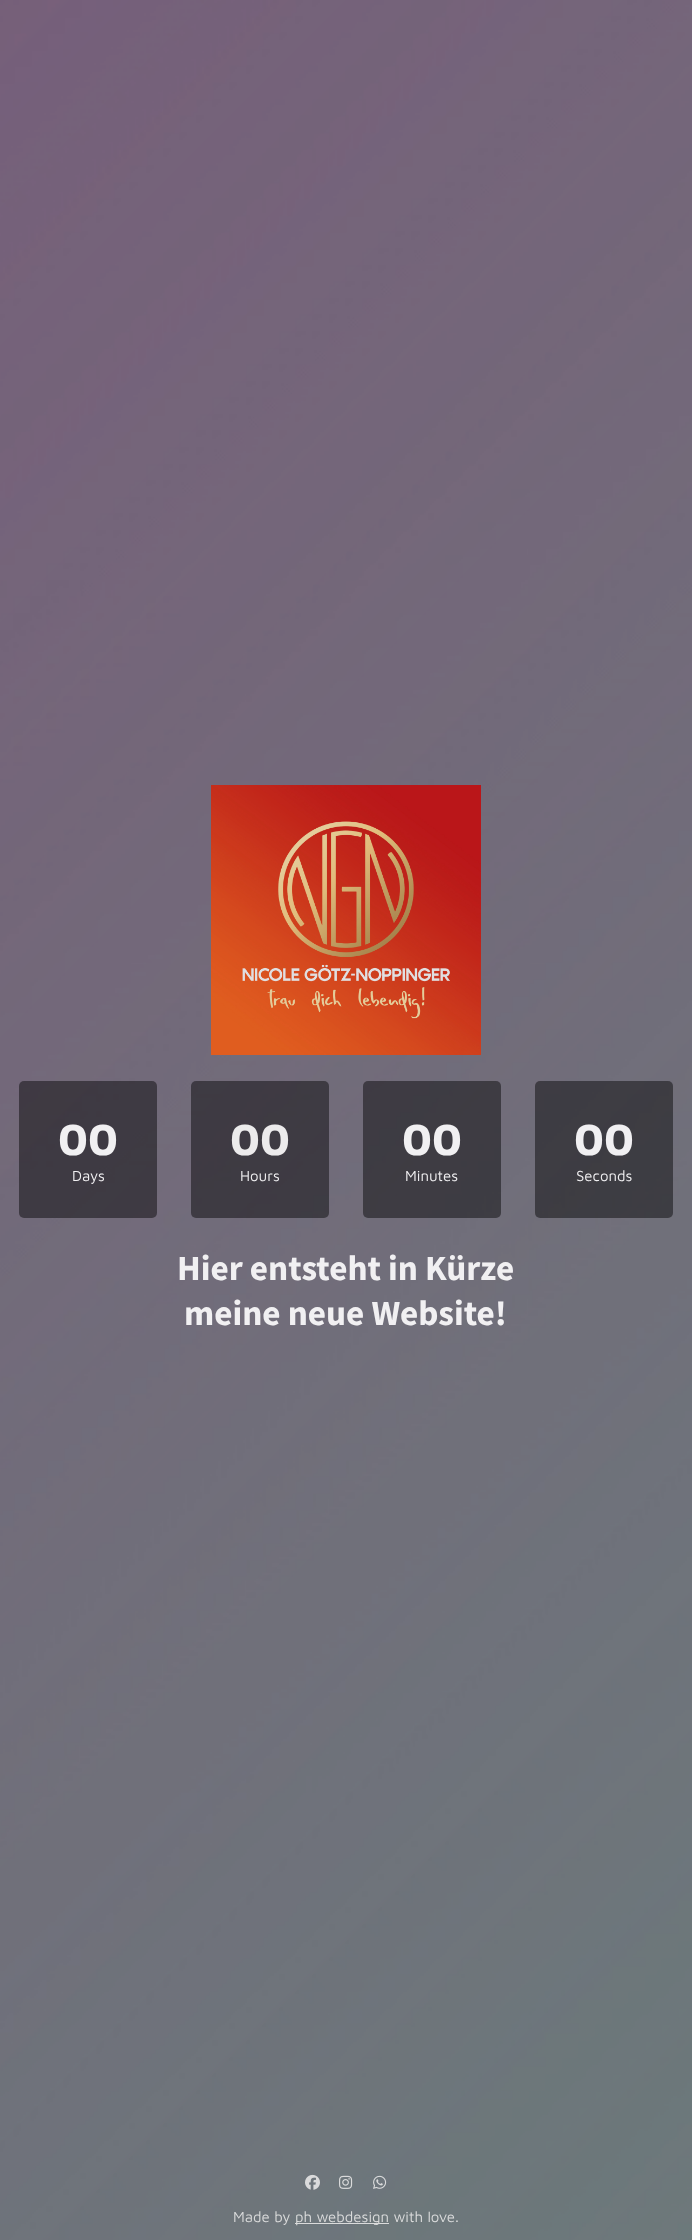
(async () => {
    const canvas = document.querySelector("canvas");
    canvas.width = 692;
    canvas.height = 2240;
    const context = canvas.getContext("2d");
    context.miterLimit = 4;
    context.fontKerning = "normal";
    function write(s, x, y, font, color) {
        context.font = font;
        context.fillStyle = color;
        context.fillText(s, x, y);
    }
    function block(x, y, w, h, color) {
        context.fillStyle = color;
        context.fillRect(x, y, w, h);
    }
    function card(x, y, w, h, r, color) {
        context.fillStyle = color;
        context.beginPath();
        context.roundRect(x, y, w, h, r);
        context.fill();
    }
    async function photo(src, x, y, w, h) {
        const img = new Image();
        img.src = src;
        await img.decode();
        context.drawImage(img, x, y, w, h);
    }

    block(0, 0, 692, 2240, "rgb(255, 255, 255)");
    await photo("media/1.png", 0, 0, 692, 2240);
    await photo("media/2.png", 211, 785, 270, 270);
    card(19, 1081, 138, 137, 5, "rgba(0, 0, 0, 0.45)");
    write("00", 58, 1155, "bold 45px Maven Pro", "rgb(241, 240, 242)");
    write("Days", 72, 1181, "15px Maven Pro", "rgb(241, 240, 242)");
    card(191, 1081, 138, 137, 5, "rgba(0, 0, 0, 0.45)");
    write("00", 230, 1155, "bold 45px Maven Pro", "rgb(236, 235, 236)");
    write("Hours", 240, 1181, "15px Maven Pro", "rgb(241, 240, 242)");
    card(363, 1081, 138, 137, 5, "rgba(0, 0, 0, 0.45)");
    write("00", 402, 1155, "bold 45px Maven Pro", "rgb(241, 240, 242)");
    write("Minutes", 405, 1181, "15px Maven Pro", "rgb(241, 240, 242)");
    card(535, 1081, 138, 137, 5, "rgba(0, 0, 0, 0.45)");
    write("00", 574, 1155, "bold 45px Maven Pro", "rgb(241, 240, 242)");
    write("Seconds", 576, 1181, "15px Maven Pro", "rgb(241, 240, 242)");
    write("Hier entsteht in Kürze", 177, 1280, "bold 35.25px Source Sans Pro", "rgb(241, 240, 242)");
    write("meine neue Website!", 184, 1325, "bold 35.25px Source Sans Pro", "rgb(241, 240, 242)");
    await photo("media/3.png", 305, 2174, 15, 16);
    await photo("media/4.png", 339, 2175, 14, 14);
    await photo("media/5.png", 373, 2175, 14, 14);
    write("Made by", 233, 2222, "15px Maven Pro", "rgb(218, 219, 219)");
    block(295, 2223, 94, 1, "rgb(218, 219, 219)");
    write("ph webdesign with love.", 295, 2222, "15px Maven Pro", "rgb(218, 219, 219)");
})();
